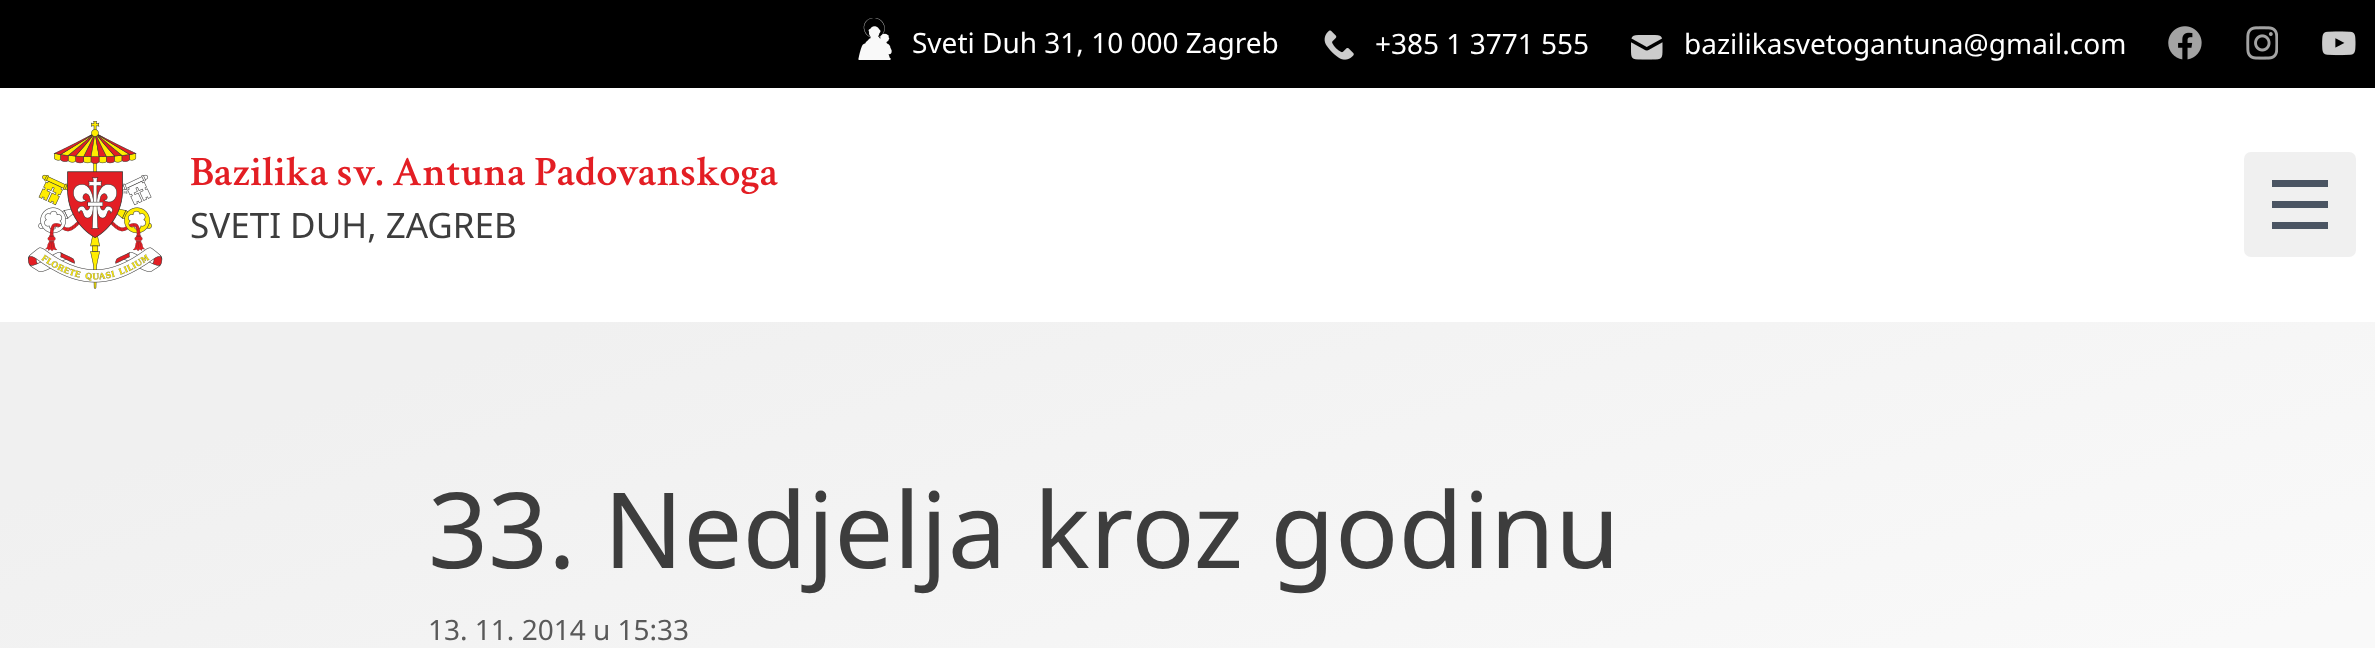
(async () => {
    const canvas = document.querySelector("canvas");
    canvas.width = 2375;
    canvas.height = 648;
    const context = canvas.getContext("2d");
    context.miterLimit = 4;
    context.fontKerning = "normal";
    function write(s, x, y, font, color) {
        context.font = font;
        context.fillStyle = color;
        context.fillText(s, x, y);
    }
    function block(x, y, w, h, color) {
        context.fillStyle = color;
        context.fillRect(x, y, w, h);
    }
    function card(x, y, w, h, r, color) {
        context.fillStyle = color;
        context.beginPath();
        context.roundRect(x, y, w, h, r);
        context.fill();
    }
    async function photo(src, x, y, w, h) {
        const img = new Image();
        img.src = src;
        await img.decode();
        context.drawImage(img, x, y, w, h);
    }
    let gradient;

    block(0, 0, 2375, 648, "rgb(255, 255, 255)");
    block(0, 0, 2375, 88, "rgb(0, 0, 0)");
    await photo("media/1.png", 858, 18, 34, 42);
    write("Sveti Duh 31, 10 000 Zagreb", 912, 53, "28px Noto Sans", "rgb(255, 255, 255)");
    await photo("media/2.png", 1324, 30, 30, 30);
    write("+385 1 3771 555", 1375, 54, "28px Noto Sans", "rgb(255, 255, 255)");
    await photo("media/3.png", 1631, 35, 32, 25);
    write("bazilikasvetogantuna@gmail.com", 1684, 54, "28px Noto Sans", "rgb(255, 255, 255)");
    await photo("media/4.png", 2168, 26, 34, 34);
    await photo("media/5.png", 2246, 26, 32, 34);
    await photo("media/6.png", 2322, 31, 34, 25);
    await photo("media/7.png", 28, 121, 135, 168);
    write("Bazilika sv. Antuna Padovanskoga", 190, 185, "600 42px Crimson Text", "rgb(227, 30, 36)");
    write("SVETI DUH, ZAGREB", 190, 238, "35px Noto Sans", "rgb(61, 61, 61)");
    card(2244, 152, 112, 105, 7, "rgb(240, 240, 240)");
    block(2272, 180, 56, 7, "rgb(75, 85, 99)");
    block(2272, 201, 56, 7, "rgb(75, 85, 99)");
    block(2272, 222, 56, 7, "rgb(75, 85, 99)");
    gradient = context.createLinearGradient(1025, -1.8, 1351, 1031);
    gradient.addColorStop(0.16, "rgb(240, 240, 240)");
    gradient.addColorStop(0.9, "rgb(249, 249, 249)");
    context.fillStyle = gradient;
    context.fillRect(0, 322, 2375, 326);
    write("33. Nedjelja kroz godinu", 428, 568, "105px Noto Sans", "rgb(61, 61, 61)");
    write("13. 11. 2014 u 15:33", 428, 640, "28px Noto Sans", "rgb(89, 89, 89)");
})();
